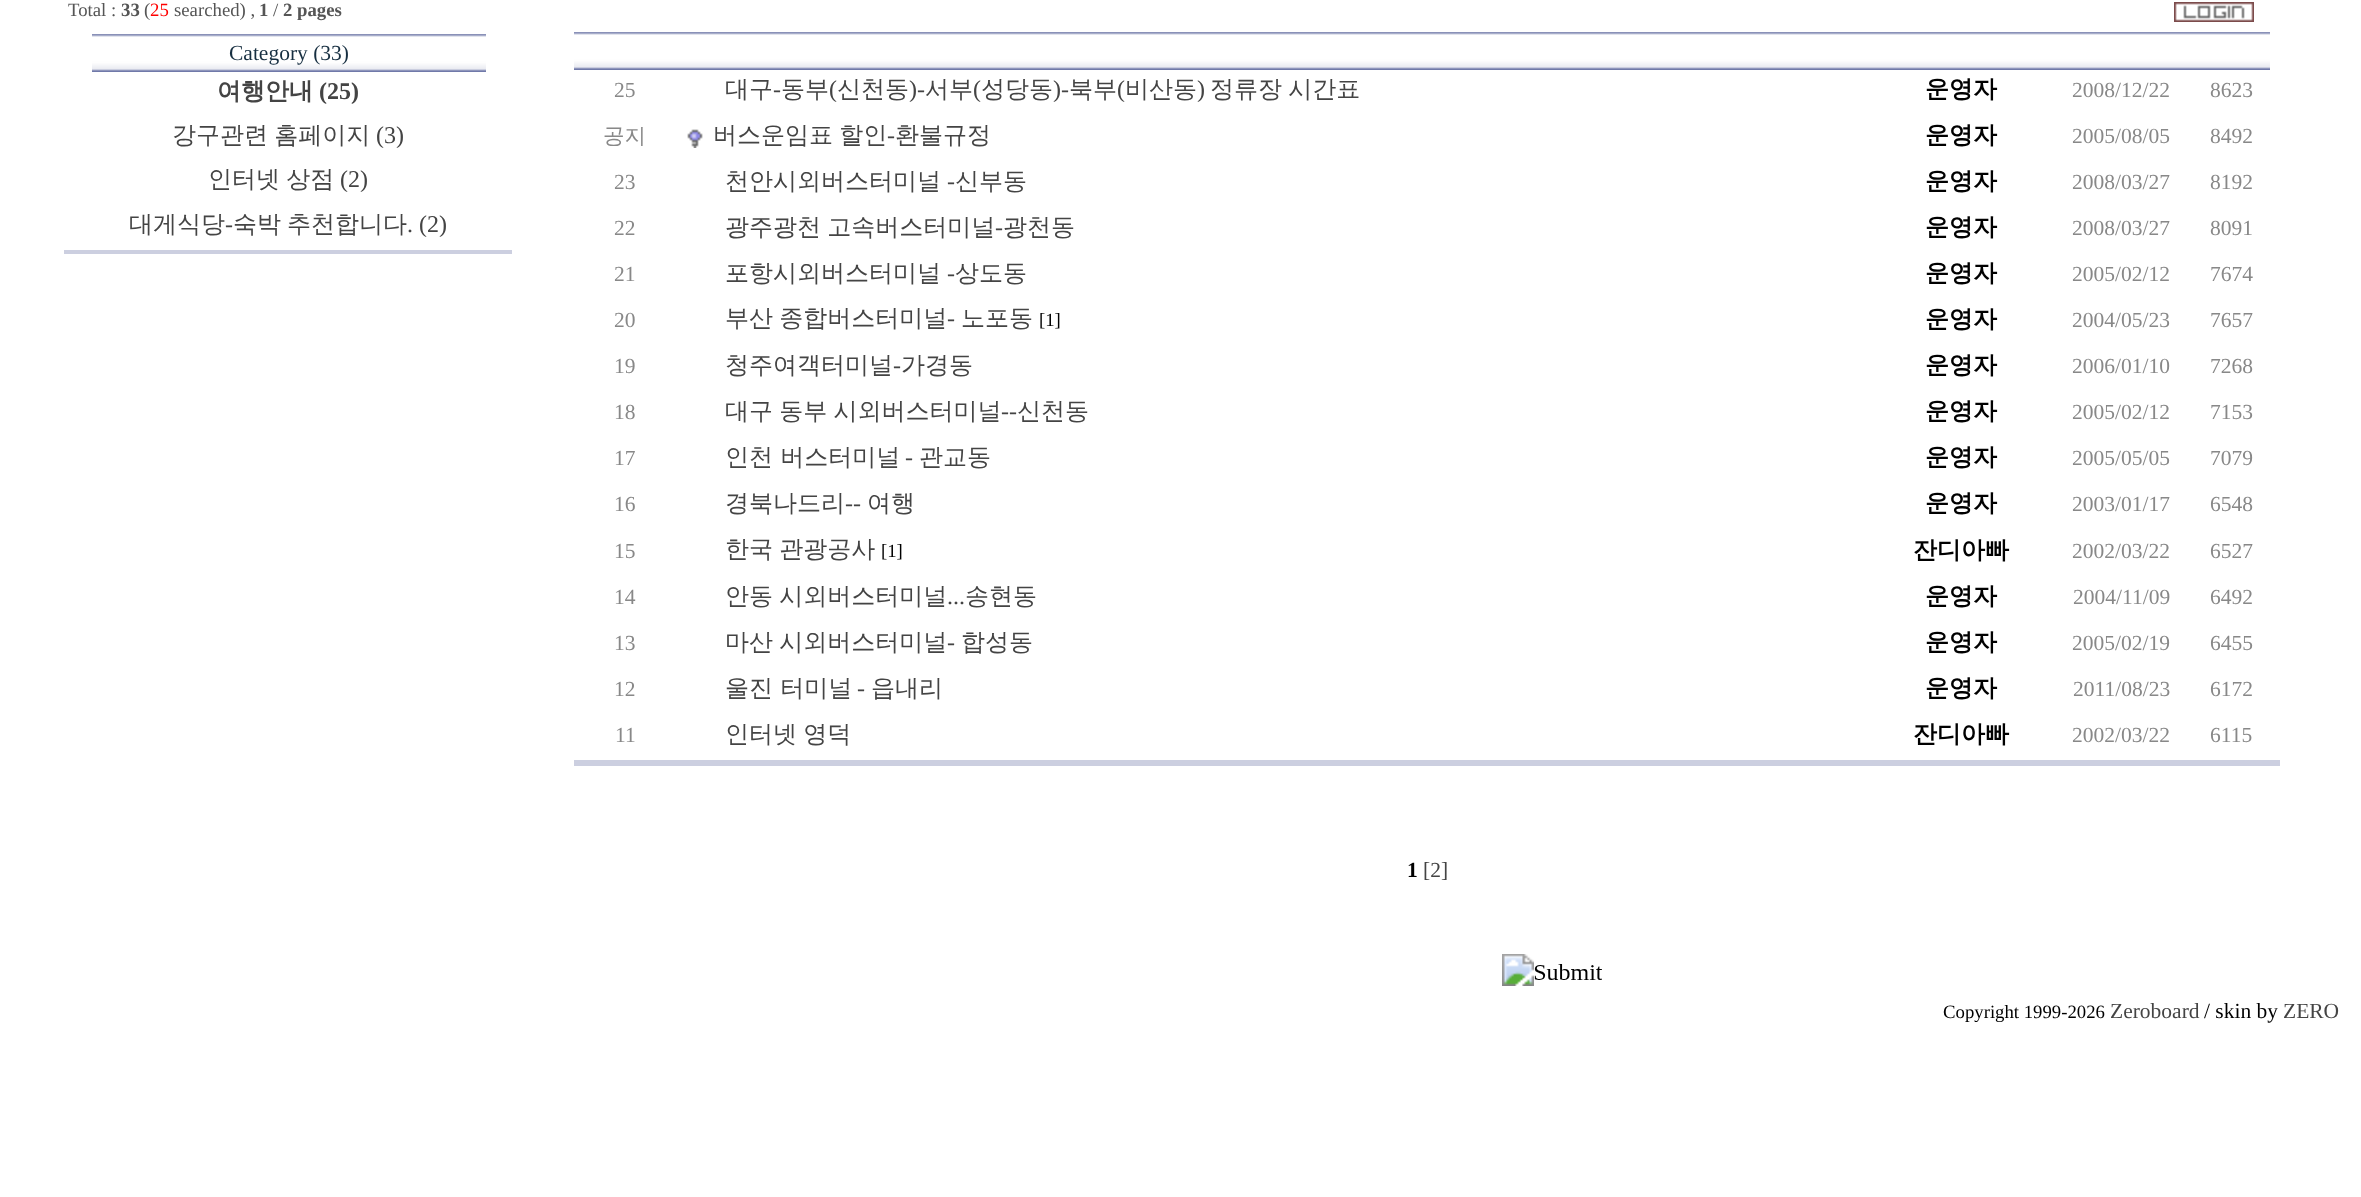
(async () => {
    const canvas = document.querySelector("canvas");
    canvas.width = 2361;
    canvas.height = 1197;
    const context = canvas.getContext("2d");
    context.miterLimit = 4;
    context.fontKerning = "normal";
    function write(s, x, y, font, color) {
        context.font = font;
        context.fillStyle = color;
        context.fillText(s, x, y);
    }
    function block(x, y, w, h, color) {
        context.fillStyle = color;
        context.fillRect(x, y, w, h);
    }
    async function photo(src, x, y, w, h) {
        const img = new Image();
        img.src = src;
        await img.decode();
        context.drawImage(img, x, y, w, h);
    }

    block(0, 0, 2361, 1197, "rgb(255, 255, 255)");
    write("Total :", 68, 16, "18.75px Liberation Serif", "rgb(85, 85, 85)");
    write("33", 121, 16, "bold 18.75px Liberation Serif", "rgb(85, 85, 85)");
    write("(", 144, 16, "18.75px Liberation Serif", "rgb(85, 85, 85)");
    write("25", 150, 16, "18.75px Liberation Serif", "rgb(255, 0, 0)");
    write("searched) ,", 174, 16, "18.75px Liberation Serif", "rgb(85, 85, 85)");
    write("1", 259, 16, "bold 18.75px Liberation Serif", "rgb(85, 85, 85)");
    write("/", 273, 16, "18.75px Liberation Serif", "rgb(85, 85, 85)");
    write("2 pages", 283, 16, "bold 18.75px Liberation Serif", "rgb(85, 85, 85)");
    await photo("media/1.png", 2174, 2, 80, 20);
    await photo("media/2.png", 92, 34, 394, 38);
    write("Category (33)", 229, 60, "21.5px Liberation Serif", "rgb(23, 47, 65)");
    write("여행안내", 217, 99, "bold 24px WenQuanYi Zen Hei", "rgb(68, 68, 68)");
    write("(25)", 319, 99, "bold 24px Liberation Serif", "rgb(68, 68, 68)");
    context.wordSpacing = "-1px";
    write("강구관련 홈페이지", 172, 143, "500 24px WenQuanYi Zen Hei", "rgb(68, 68, 68)");
    context.wordSpacing = "0px";
    write("(3)", 376, 143, "24px Liberation Serif", "rgb(68, 68, 68)");
    context.wordSpacing = "-1px";
    write("인터넷 상점", 208, 187, "500 24px WenQuanYi Zen Hei", "rgb(68, 68, 68)");
    context.wordSpacing = "0px";
    write("(2)", 340, 187, "24px Liberation Serif", "rgb(68, 68, 68)");
    write("대게식당", 129, 232, "500 24px WenQuanYi Zen Hei", "rgb(68, 68, 68)");
    write("-", 225, 232, "24px Liberation Serif", "rgb(68, 68, 68)");
    write("숙박", 233, 232, "500 24px WenQuanYi Zen Hei", "rgb(68, 68, 68)");
    write("추천합니다", 287, 232, "500 24px WenQuanYi Zen Hei", "rgb(68, 68, 68)");
    write(". (2)", 407, 232, "24px Liberation Serif", "rgb(68, 68, 68)");
    block(64, 250, 448, 4, "rgb(204, 207, 224)");
    await photo("media/3.png", 574, 32, 100, 38);
    await photo("media/4.png", 674, 32, 1196, 38);
    await photo("media/5.png", 1870, 32, 180, 38);
    await photo("media/6.png", 2050, 32, 140, 38);
    await photo("media/7.png", 2190, 32, 80, 38);
    write("25", 614, 97, "21.5px Liberation Serif", "rgb(136, 136, 136)");
    write("대구", 725, 97, "500 24px WenQuanYi Zen Hei", "rgb(68, 68, 68)");
    write("-", 773, 97, "24px Liberation Serif", "rgb(68, 68, 68)");
    write("동부", 781, 97, "500 24px WenQuanYi Zen Hei", "rgb(68, 68, 68)");
    write("(", 829, 97, "24px Liberation Serif", "rgb(68, 68, 68)");
    write("신천동", 837, 97, "500 24px WenQuanYi Zen Hei", "rgb(68, 68, 68)");
    write(")-", 909, 97, "24px Liberation Serif", "rgb(68, 68, 68)");
    write("서부", 925, 97, "500 24px WenQuanYi Zen Hei", "rgb(68, 68, 68)");
    write("(", 973, 97, "24px Liberation Serif", "rgb(68, 68, 68)");
    write("성당동", 981, 97, "500 24px WenQuanYi Zen Hei", "rgb(68, 68, 68)");
    write(")-", 1053, 97, "24px Liberation Serif", "rgb(68, 68, 68)");
    write("북부", 1069, 97, "500 24px WenQuanYi Zen Hei", "rgb(68, 68, 68)");
    write("(", 1117, 97, "24px Liberation Serif", "rgb(68, 68, 68)");
    write("비산동", 1125, 97, "500 24px WenQuanYi Zen Hei", "rgb(68, 68, 68)");
    write(")", 1197, 97, "24px Liberation Serif", "rgb(68, 68, 68)");
    context.wordSpacing = "-1px";
    write("정류장 시간표", 1210, 97, "500 24px WenQuanYi Zen Hei", "rgb(68, 68, 68)");
    context.wordSpacing = "0px";
    write("운영자", 1925, 97, "bold 24px WenQuanYi Zen Hei", "rgb(0, 0, 0)");
    write("2008/12/22", 2072, 97, "21.5px Liberation Serif", "rgb(136, 136, 136)");
    write("8623", 2210, 97, "21.5px Liberation Serif", "rgb(136, 136, 136)");
    write("공지", 603, 143, "500 21.5px WenQuanYi Zen Hei", "rgb(136, 136, 136)");
    await photo("media/8.png", 687, 129, 16, 19);
    context.wordSpacing = "-1px";
    write("버스운임표 할인", 713, 143, "500 24px WenQuanYi Zen Hei", "rgb(68, 68, 68)");
    context.wordSpacing = "0px";
    write("-", 887, 143, "24px Liberation Serif", "rgb(68, 68, 68)");
    write("환불규정", 895, 143, "500 24px WenQuanYi Zen Hei", "rgb(68, 68, 68)");
    write("운영자", 1925, 143, "bold 24px WenQuanYi Zen Hei", "rgb(0, 0, 0)");
    write("2005/08/05", 2072, 143, "21.5px Liberation Serif", "rgb(136, 136, 136)");
    write("8492", 2210, 143, "21.5px Liberation Serif", "rgb(136, 136, 136)");
    write("23", 614, 189, "21.5px Liberation Serif", "rgb(136, 136, 136)");
    write("천안시외버스터미널", 725, 189, "500 24px WenQuanYi Zen Hei", "rgb(68, 68, 68)");
    write("-", 947, 189, "24px Liberation Serif", "rgb(68, 68, 68)");
    write("신부동", 955, 189, "500 24px WenQuanYi Zen Hei", "rgb(68, 68, 68)");
    write("운영자", 1925, 189, "bold 24px WenQuanYi Zen Hei", "rgb(0, 0, 0)");
    write("2008/03/27", 2072, 189, "21.5px Liberation Serif", "rgb(136, 136, 136)");
    write("8192", 2210, 189, "21.5px Liberation Serif", "rgb(136, 136, 136)");
    write("22", 614, 235, "21.5px Liberation Serif", "rgb(136, 136, 136)");
    context.wordSpacing = "-1px";
    write("광주광천 고속버스터미널", 725, 235, "500 24px WenQuanYi Zen Hei", "rgb(68, 68, 68)");
    context.wordSpacing = "0px";
    write("-", 995, 235, "24px Liberation Serif", "rgb(68, 68, 68)");
    write("광천동", 1003, 235, "500 24px WenQuanYi Zen Hei", "rgb(68, 68, 68)");
    write("운영자", 1925, 235, "bold 24px WenQuanYi Zen Hei", "rgb(0, 0, 0)");
    write("2008/03/27", 2072, 235, "21.5px Liberation Serif", "rgb(136, 136, 136)");
    write("8091", 2210, 235, "21.5px Liberation Serif", "rgb(136, 136, 136)");
    write("21", 614, 281, "21.5px Liberation Serif", "rgb(136, 136, 136)");
    write("포항시외버스터미널", 725, 281, "500 24px WenQuanYi Zen Hei", "rgb(68, 68, 68)");
    write("-", 947, 281, "24px Liberation Serif", "rgb(68, 68, 68)");
    write("상도동", 955, 281, "500 24px WenQuanYi Zen Hei", "rgb(68, 68, 68)");
    write("운영자", 1925, 281, "bold 24px WenQuanYi Zen Hei", "rgb(0, 0, 0)");
    write("2005/02/12", 2072, 281, "21.5px Liberation Serif", "rgb(136, 136, 136)");
    write("7674", 2210, 281, "21.5px Liberation Serif", "rgb(136, 136, 136)");
    write("20", 614, 327, "21.5px Liberation Serif", "rgb(136, 136, 136)");
    context.wordSpacing = "-1px";
    write("부산 종합버스터미널", 725, 326, "500 24px WenQuanYi Zen Hei", "rgb(68, 68, 68)");
    context.wordSpacing = "0px";
    write("-", 947, 326, "24px Liberation Serif", "rgb(68, 68, 68)");
    write("노포동", 961, 326, "500 24px WenQuanYi Zen Hei", "rgb(68, 68, 68)");
    write("[1]", 1039, 326, "18.75px Liberation Serif", "rgb(0, 0, 0)");
    write("운영자", 1925, 327, "bold 24px WenQuanYi Zen Hei", "rgb(0, 0, 0)");
    write("2004/05/23", 2072, 327, "21.5px Liberation Serif", "rgb(136, 136, 136)");
    write("7657", 2210, 327, "21.5px Liberation Serif", "rgb(136, 136, 136)");
    write("19", 614, 373, "21.5px Liberation Serif", "rgb(136, 136, 136)");
    write("청주여객터미널", 725, 373, "500 24px WenQuanYi Zen Hei", "rgb(68, 68, 68)");
    write("-", 893, 373, "24px Liberation Serif", "rgb(68, 68, 68)");
    write("가경동", 901, 373, "500 24px WenQuanYi Zen Hei", "rgb(68, 68, 68)");
    write("운영자", 1925, 373, "bold 24px WenQuanYi Zen Hei", "rgb(0, 0, 0)");
    write("2006/01/10", 2072, 373, "21.5px Liberation Serif", "rgb(136, 136, 136)");
    write("7268", 2210, 373, "21.5px Liberation Serif", "rgb(136, 136, 136)");
    write("18", 614, 419, "21.5px Liberation Serif", "rgb(136, 136, 136)");
    context.wordSpacing = "-1px";
    write("대구 동부 시외버스터미널", 725, 419, "500 24px WenQuanYi Zen Hei", "rgb(68, 68, 68)");
    context.wordSpacing = "0px";
    write("--", 1001, 419, "24px Liberation Serif", "rgb(68, 68, 68)");
    write("신천동", 1017, 419, "500 24px WenQuanYi Zen Hei", "rgb(68, 68, 68)");
    write("운영자", 1925, 419, "bold 24px WenQuanYi Zen Hei", "rgb(0, 0, 0)");
    write("2005/02/12", 2072, 419, "21.5px Liberation Serif", "rgb(136, 136, 136)");
    write("7153", 2210, 419, "21.5px Liberation Serif", "rgb(136, 136, 136)");
    write("17", 614, 465, "21.5px Liberation Serif", "rgb(136, 136, 136)");
    write("인천 버스터미널", 725, 465, "500 24px WenQuanYi Zen Hei", "rgb(68, 68, 68)");
    write("-", 905, 465, "24px Liberation Serif", "rgb(68, 68, 68)");
    write("관교동", 919, 465, "500 24px WenQuanYi Zen Hei", "rgb(68, 68, 68)");
    write("운영자", 1925, 465, "bold 24px WenQuanYi Zen Hei", "rgb(0, 0, 0)");
    write("2005/05/05", 2072, 465, "21.5px Liberation Serif", "rgb(136, 136, 136)");
    write("7079", 2210, 465, "21.5px Liberation Serif", "rgb(136, 136, 136)");
    write("16", 614, 511, "21.5px Liberation Serif", "rgb(136, 136, 136)");
    write("경북나드리", 725, 511, "500 24px WenQuanYi Zen Hei", "rgb(68, 68, 68)");
    write("--", 845, 511, "24px Liberation Serif", "rgb(68, 68, 68)");
    write("여행", 867, 511, "500 24px WenQuanYi Zen Hei", "rgb(68, 68, 68)");
    write("운영자", 1925, 511, "bold 24px WenQuanYi Zen Hei", "rgb(0, 0, 0)");
    write("2003/01/17", 2072, 511, "21.5px Liberation Serif", "rgb(136, 136, 136)");
    write("6548", 2210, 511, "21.5px Liberation Serif", "rgb(136, 136, 136)");
    write("15", 614, 558, "21.5px Liberation Serif", "rgb(136, 136, 136)");
    context.wordSpacing = "-1px";
    write("한국 관광공사", 725, 557, "500 24px WenQuanYi Zen Hei", "rgb(68, 68, 68)");
    context.wordSpacing = "0px";
    write("[1]", 881, 557, "18.75px Liberation Serif", "rgb(0, 0, 0)");
    write("잔디아빠", 1913, 558, "bold 24px WenQuanYi Zen Hei", "rgb(0, 0, 0)");
    write("2002/03/22", 2072, 558, "21.5px Liberation Serif", "rgb(136, 136, 136)");
    write("6527", 2210, 558, "21.5px Liberation Serif", "rgb(136, 136, 136)");
    write("14", 614, 604, "21.5px Liberation Serif", "rgb(136, 136, 136)");
    context.wordSpacing = "-1px";
    write("안동 시외버스터미널", 725, 604, "500 24px WenQuanYi Zen Hei", "rgb(68, 68, 68)");
    context.wordSpacing = "0px";
    write("...", 947, 604, "24px Liberation Serif", "rgb(68, 68, 68)");
    write("송현동", 965, 604, "500 24px WenQuanYi Zen Hei", "rgb(68, 68, 68)");
    write("운영자", 1925, 604, "bold 24px WenQuanYi Zen Hei", "rgb(0, 0, 0)");
    write("2004/11/09", 2073, 604, "21.5px Liberation Serif", "rgb(136, 136, 136)");
    write("6492", 2210, 604, "21.5px Liberation Serif", "rgb(136, 136, 136)");
    write("13", 614, 650, "21.5px Liberation Serif", "rgb(136, 136, 136)");
    context.wordSpacing = "-1px";
    write("마산 시외버스터미널", 725, 650, "500 24px WenQuanYi Zen Hei", "rgb(68, 68, 68)");
    context.wordSpacing = "0px";
    write("-", 947, 650, "24px Liberation Serif", "rgb(68, 68, 68)");
    write("합성동", 961, 650, "500 24px WenQuanYi Zen Hei", "rgb(68, 68, 68)");
    write("운영자", 1925, 650, "bold 24px WenQuanYi Zen Hei", "rgb(0, 0, 0)");
    write("2005/02/19", 2072, 650, "21.5px Liberation Serif", "rgb(136, 136, 136)");
    write("6455", 2210, 650, "21.5px Liberation Serif", "rgb(136, 136, 136)");
    write("12", 614, 696, "21.5px Liberation Serif", "rgb(136, 136, 136)");
    write("울진 터미널", 725, 696, "500 24px WenQuanYi Zen Hei", "rgb(68, 68, 68)");
    write("-", 857, 696, "24px Liberation Serif", "rgb(68, 68, 68)");
    write("읍내리", 871, 696, "500 24px WenQuanYi Zen Hei", "rgb(68, 68, 68)");
    write("운영자", 1925, 696, "bold 24px WenQuanYi Zen Hei", "rgb(0, 0, 0)");
    write("2011/08/23", 2073, 696, "21.5px Liberation Serif", "rgb(136, 136, 136)");
    write("6172", 2210, 696, "21.5px Liberation Serif", "rgb(136, 136, 136)");
    write("11", 615, 742, "21.5px Liberation Serif", "rgb(136, 136, 136)");
    context.wordSpacing = "-1px";
    write("인터넷 영덕", 725, 742, "500 24px WenQuanYi Zen Hei", "rgb(68, 68, 68)");
    context.wordSpacing = "0px";
    write("잔디아빠", 1913, 742, "bold 24px WenQuanYi Zen Hei", "rgb(0, 0, 0)");
    write("2002/03/22", 2072, 742, "21.5px Liberation Serif", "rgb(136, 136, 136)");
    write("6115", 2210, 742, "21.5px Liberation Serif", "rgb(136, 136, 136)");
    block(574, 760, 1706, 6, "rgb(204, 207, 224)");
    write("1", 1407, 877, "bold 21.5px Liberation Serif", "rgb(0, 0, 0)");
    write("[2]", 1423, 877, "21.5px Liberation Serif", "rgb(68, 68, 68)");
    await photo("media/9.png", 1502, 954, 100, 32);
    write("Copyright 1999-2026", 1943, 1018, "18.75px Liberation Serif", "rgb(0, 0, 0)");
    write("Zeroboard", 2110, 1018, "21.5px Liberation Serif", "rgb(68, 68, 68)");
    write("/ skin by", 2204, 1018, "21.5px Liberation Serif", "rgb(0, 0, 0)");
    write("ZERO", 2283, 1018, "21.5px Liberation Serif", "rgb(68, 68, 68)");
})();
